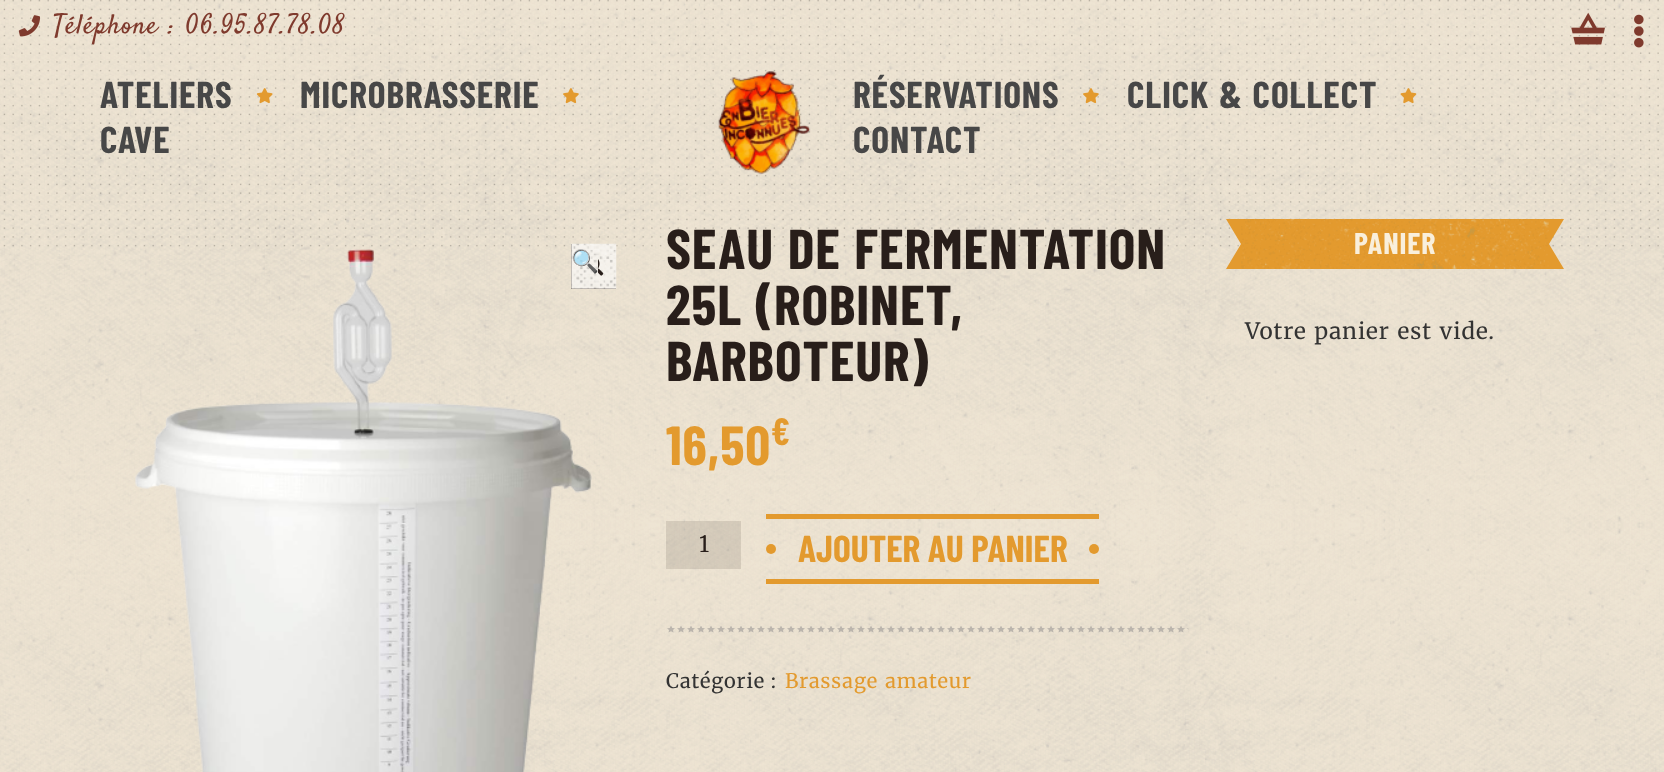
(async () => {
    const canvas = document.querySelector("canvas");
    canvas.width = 1664;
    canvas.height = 772;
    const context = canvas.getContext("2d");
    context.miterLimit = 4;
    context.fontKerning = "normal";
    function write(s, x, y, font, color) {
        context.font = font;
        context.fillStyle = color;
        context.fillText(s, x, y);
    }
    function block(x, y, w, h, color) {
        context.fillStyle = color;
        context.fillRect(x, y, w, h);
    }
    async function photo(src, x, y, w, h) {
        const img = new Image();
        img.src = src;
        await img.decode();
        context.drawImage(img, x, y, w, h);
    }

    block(0, 0, 1664, 772, "rgb(249, 239, 220)");
    await photo("media/1.png", 0, 0, 1664, 772);
    await photo("media/2.png", 3, 0, 1656, 247);
    await photo("media/3.png", 18, 15, 22, 22);
    context.letterSpacing = "0.9px";
    context.wordSpacing = "1.5px";
    write("Téléphone : 06.95.87.78.08", 53, 33, "27.5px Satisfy", "rgb(127, 58, 45)");
    await photo("media/4.png", 1571, 12, 34, 33);
    await photo("media/5.png", 1634, 14, 10, 34);
    context.wordSpacing = "0px";
    write("ATELIERS", 100, 108, "bold 37.5px Barlow Condensed", "rgb(71, 71, 71)");
    await photo("media/6.png", 256, 88, 17, 16);
    write("MICROBRASSERIE", 300, 108, "bold 37.5px Barlow Condensed", "rgb(71, 71, 71)");
    await photo("media/7.png", 563, 88, 16, 16);
    write("CAVE", 100, 153, "bold 37.5px Barlow Condensed", "rgb(71, 71, 71)");
    await photo("media/8.png", 718, 71, 93, 103);
    write("RÉSERVATIONS", 853, 108, "bold 37.5px Barlow Condensed", "rgb(71, 71, 71)");
    await photo("media/9.png", 1083, 88, 16, 16);
    context.wordSpacing = "1.5px";
    write("CLICK & COLLECT", 1127, 108, "bold 37.5px Barlow Condensed", "rgb(71, 71, 71)");
    await photo("media/10.png", 1400, 88, 17, 16);
    context.wordSpacing = "0px";
    write("CONTACT", 853, 153, "bold 37.5px Barlow Condensed", "rgb(71, 71, 71)");
    await photo("media/13.png", 135, 249, 457, 523);
    block(571, 244, 45, 45, "rgb(40, 30, 26)");
    await photo("media/11.png", 571, 243, 46, 46);
    write("🔍", 571, 269, "22.5px Noto Color Emoji", "rgb(40, 30, 26)");
    await photo("media/12.png", 598, 259, 6, 17);
    context.wordSpacing = "1.5px";
    write("SEAU DE FERMENTATION", 666, 269, "bold 56.25px Barlow Condensed", "rgb(40, 30, 26)");
    write("25L (ROBINET,", 666, 325, "bold 56.25px Barlow Condensed", "rgb(40, 30, 26)");
    context.wordSpacing = "0px";
    write("BARBOTEUR)", 666, 381, "bold 56.25px Barlow Condensed", "rgb(40, 30, 26)");
    write("16,50", 666, 465, "bold 55px Barlow Condensed", "rgb(227, 154, 46)");
    write("€", 771, 445, "bold 38px Barlow Condensed", "rgb(227, 154, 46)");
    block(666, 521, 75, 48, "rgba(40, 30, 26, 0.12)");
    context.letterSpacing = "0px";
    write("1", 699, 552, "22.5px Merriweather", "rgb(40, 30, 26)");
    block(766, 514, 333, 5, "rgb(227, 154, 46)");
    block(766, 579, 333, 5, "rgb(227, 154, 46)");
    context.beginPath();
    context.arc(771, 549, 5, 0, Math.PI * 2);
    context.fill();
    write("AJOUTER AU PANIER", 798, 562, "bold 37.5px Barlow Condensed", "rgb(227, 154, 46)");
    context.beginPath();
    context.arc(1094, 549, 5, 0, Math.PI * 2);
    context.fill();
    await photo("media/14.png", 667, 626, 522, 7);
    context.letterSpacing = "0.9px";
    write("Catégorie :", 666, 688, "20px Merriweather", "rgb(51, 51, 51)");
    context.wordSpacing = "1.5px";
    write("Brassage amateur", 785, 688, "20px Merriweather", "rgb(227, 154, 46)");
    block(1241, 219, 308, 50, "rgb(227, 154, 46)");
    await photo("media/15.png", 1241, 219, 308, 50);
    context.beginPath();
    context.moveTo(1226, 219);
    context.lineTo(1241, 219);
    context.lineTo(1241, 244);
    context.closePath();
    context.moveTo(1241, 269);
    context.lineTo(1226, 269);
    context.lineTo(1241, 244);
    context.closePath();
    context.fill();
    context.wordSpacing = "0px";
    write("PANIER", 1354, 254, "bold 30px Barlow Condensed", "rgb(249, 239, 220)");
    context.fillStyle = "rgb(227, 154, 46)";
    context.beginPath();
    context.moveTo(1549, 219);
    context.lineTo(1564, 219);
    context.lineTo(1549, 244);
    context.closePath();
    context.moveTo(1564, 269);
    context.lineTo(1549, 269);
    context.lineTo(1549, 244);
    context.closePath();
    context.fill();
    context.wordSpacing = "1.5px";
    write("Votre panier est vide.", 1245, 339, "22.5px Merriweather", "rgb(51, 51, 51)");
})();
